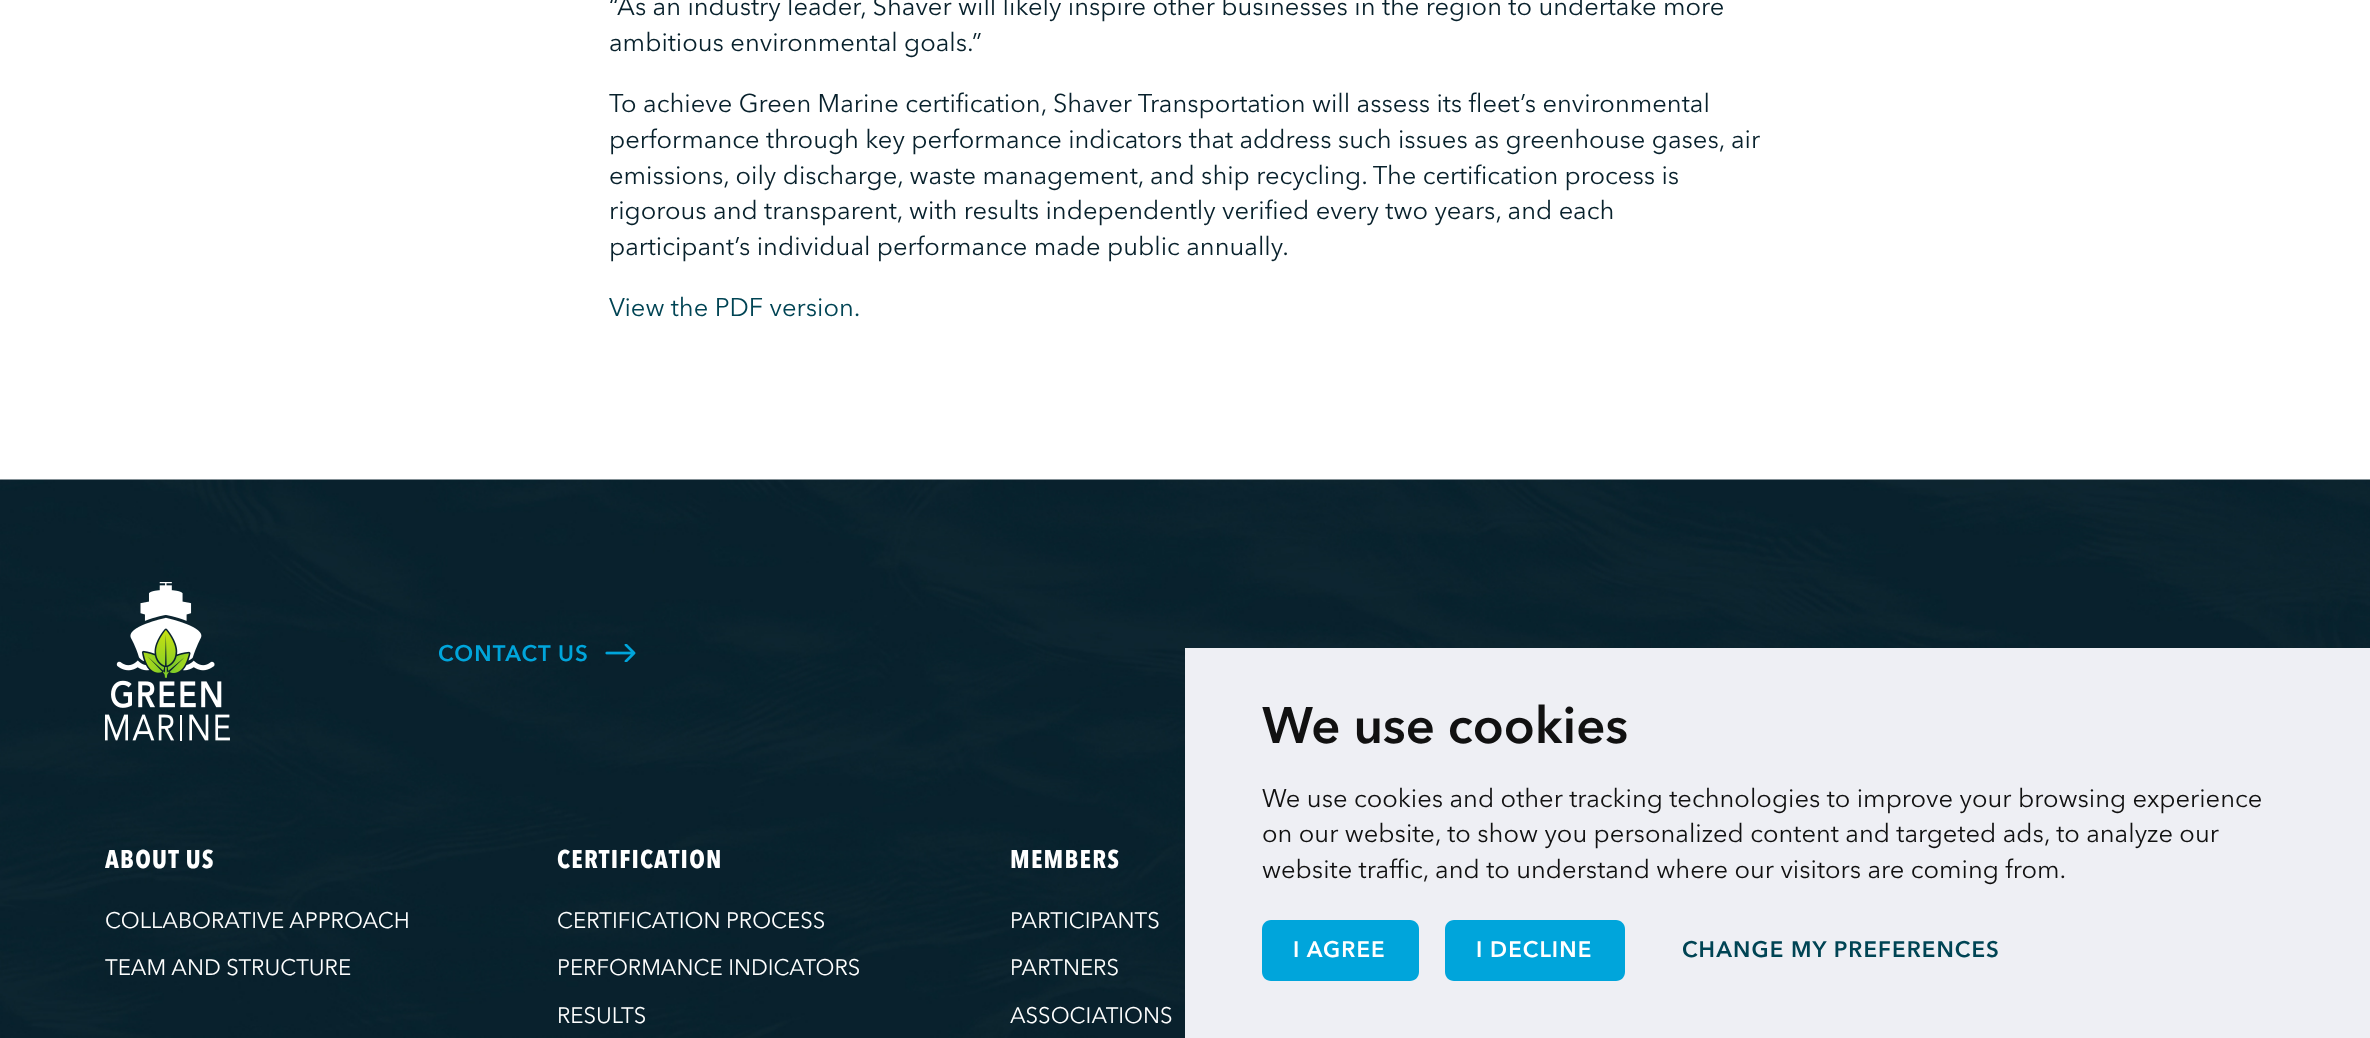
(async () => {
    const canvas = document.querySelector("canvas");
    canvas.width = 2370;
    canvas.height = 1038;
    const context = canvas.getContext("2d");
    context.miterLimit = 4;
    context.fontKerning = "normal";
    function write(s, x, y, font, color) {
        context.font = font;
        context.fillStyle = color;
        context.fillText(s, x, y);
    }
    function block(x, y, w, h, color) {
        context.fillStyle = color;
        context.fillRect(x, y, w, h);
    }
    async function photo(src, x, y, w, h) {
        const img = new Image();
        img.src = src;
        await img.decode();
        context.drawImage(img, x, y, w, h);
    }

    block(0, 0, 2370, 1038, "rgb(255, 255, 255)");
    write("“As an industry leader, Shaver will likely inspire other businesses in the region to undertake more", 609, 15, "25.5px Avenir Next", "rgb(8, 33, 44)");
    write("ambitious environmental goals.”", 609, 51, "25.5px Avenir Next", "rgb(8, 33, 44)");
    write("To achieve Green Marine certification, Shaver Transportation will assess its fleet’s environmental", 609, 112, "25.5px Avenir Next", "rgb(8, 33, 44)");
    write("performance through key performance indicators that address such issues as greenhouse gases, air", 609, 148, "25.5px Avenir Next", "rgb(8, 33, 44)");
    write("emissions, oily discharge, waste management, and ship recycling. The certification process is", 609, 184, "25.5px Avenir Next", "rgb(8, 33, 44)");
    write("rigorous and transparent, with results independently verified every two years, and each", 609, 219, "25.5px Avenir Next", "rgb(8, 33, 44)");
    write("participant’s individual performance made public annually.", 609, 255, "25.5px Avenir Next", "rgb(8, 33, 44)");
    write("View the PDF version.", 609, 316, "25.5px Avenir Next", "rgb(0, 68, 84)");
    await photo("media/1.png", 0, 479, 2370, 559);
    await photo("media/2.png", 105, 582, 125, 159);
    context.letterSpacing = "1.1px";
    write("CONTACT US", 438, 661, "600 22.25px Avenir Next", "rgb(0, 165, 219)");
    await photo("media/3.png", 605, 644, 31, 18);
    context.letterSpacing = "1.25px";
    write("ABOUT US", 105, 868, "bold 25.5px Avenir Next", "rgb(255, 255, 255)");
    context.letterSpacing = "0px";
    write("COLLABORATIVE APPROACH", 105, 928, "22.25px Avenir Next", "rgb(255, 255, 255)");
    write("TEAM AND STRUCTURE", 105, 975, "22.25px Avenir Next", "rgb(255, 255, 255)");
    context.letterSpacing = "1.25px";
    write("CERTIFICATION", 557, 868, "bold 25.5px Avenir Next", "rgb(255, 255, 255)");
    context.letterSpacing = "0px";
    write("CERTIFICATION PROCESS", 557, 928, "22.25px Avenir Next", "rgb(255, 255, 255)");
    write("PERFORMANCE INDICATORS", 557, 975, "22.25px Avenir Next", "rgb(255, 255, 255)");
    write("RESULTS", 557, 1023, "22.25px Avenir Next", "rgb(255, 255, 255)");
    context.letterSpacing = "1.25px";
    write("MEMBERS", 1010, 868, "bold 25.5px Avenir Next", "rgb(255, 255, 255)");
    context.letterSpacing = "0px";
    write("PARTICIPANTS", 1010, 928, "22.25px Avenir Next", "rgb(255, 255, 255)");
    write("PARTNERS", 1010, 975, "22.25px Avenir Next", "rgb(255, 255, 255)");
    write("ASSOCIATIONS", 1010, 1023, "22.25px Avenir Next", "rgb(255, 255, 255)");
    block(1185, 648, 1185, 390, "rgb(238, 239, 244)");
    write("We use cookies", 1262, 743, "600 51px Avenir Next", "rgb(17, 17, 17)");
    write("We use cookies and other tracking technologies to improve your browsing experience", 1262, 807, "25.5px Avenir Next", "rgb(17, 17, 17)");
    write("on our website, to show you personalized content and targeted ads, to analyze our", 1262, 842, "25.5px Avenir Next", "rgb(17, 17, 17)");
    write("website traffic, and to understand where our visitors are coming from.", 1262, 878, "25.5px Avenir Next", "rgb(17, 17, 17)");
    context.fillStyle = "rgb(0, 165, 219)";
    context.beginPath();
    context.moveTo(1271, 920);
    context.bezierCurveTo(1266, 920, 1262, 924, 1262, 929);
    context.lineTo(1262, 972);
    context.bezierCurveTo(1262, 977, 1266, 981, 1271, 981);
    context.lineTo(1410, 981);
    context.bezierCurveTo(1415, 981, 1419, 977, 1419, 972);
    context.lineTo(1419, 929);
    context.bezierCurveTo(1419, 924, 1415, 920, 1410, 920);
    context.closePath();
    context.fill();
    context.letterSpacing = "1.1px";
    write("I AGREE", 1293, 957, "600 22.25px Avenir Next", "rgb(255, 255, 255)");
    context.fillStyle = "rgb(0, 165, 219)";
    context.beginPath();
    context.moveTo(1454, 920);
    context.bezierCurveTo(1449, 920, 1445, 924, 1445, 929);
    context.lineTo(1445, 972);
    context.bezierCurveTo(1445, 977, 1449, 981, 1454, 981);
    context.lineTo(1616, 981);
    context.bezierCurveTo(1621, 981, 1625, 977, 1625, 972);
    context.lineTo(1625, 929);
    context.bezierCurveTo(1625, 924, 1621, 920, 1616, 920);
    context.closePath();
    context.fill();
    write("I DECLINE", 1476, 957, "600 22.25px Avenir Next", "rgb(255, 255, 255)");
    write("CHANGE MY PREFERENCES", 1682, 957, "600 22.25px Avenir Next", "rgb(0, 68, 84)");
})();
